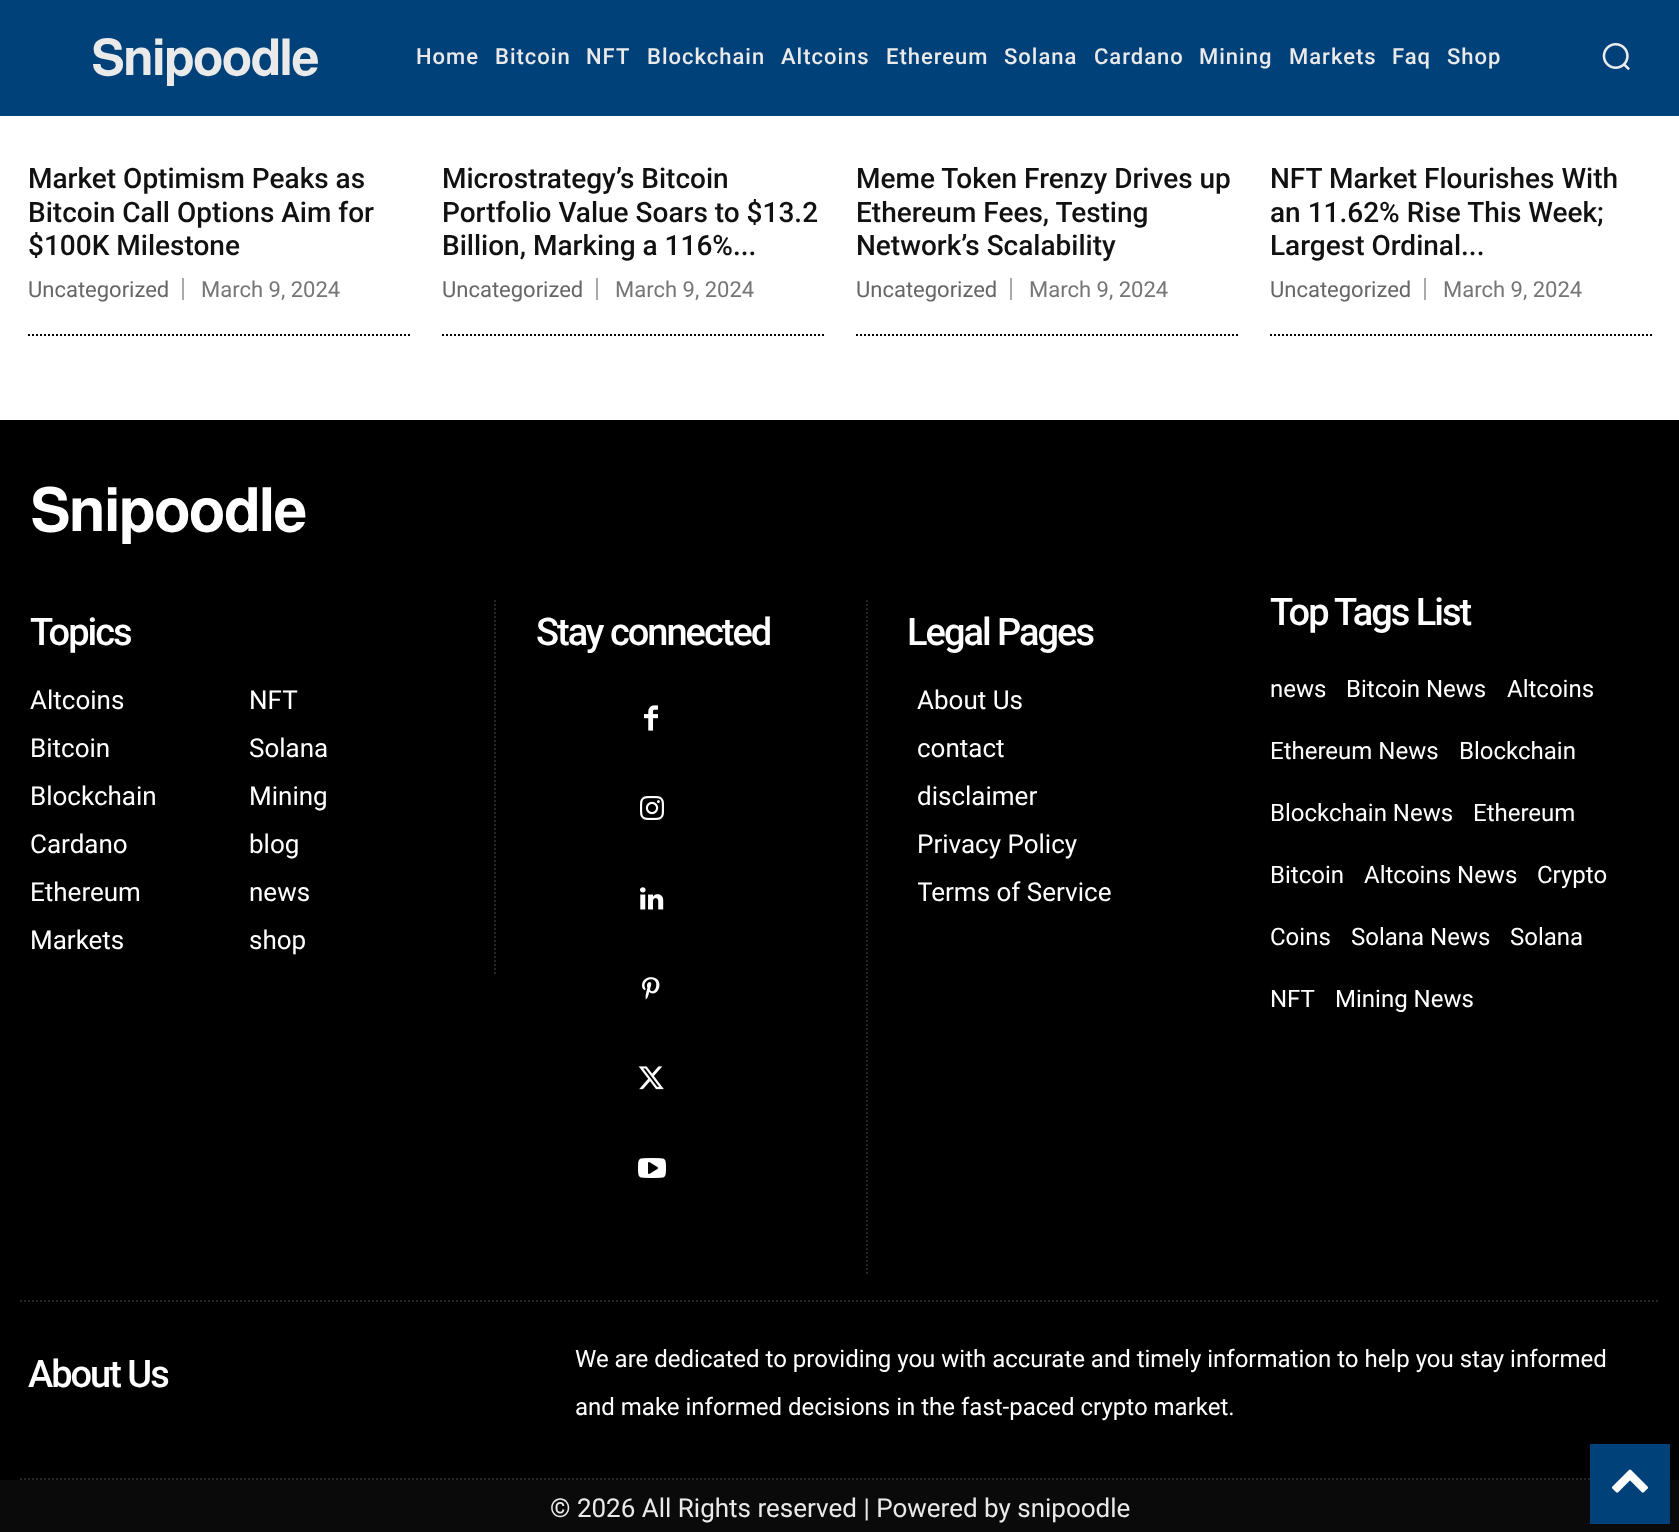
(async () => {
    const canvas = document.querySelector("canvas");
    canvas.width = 1679;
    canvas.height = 1532;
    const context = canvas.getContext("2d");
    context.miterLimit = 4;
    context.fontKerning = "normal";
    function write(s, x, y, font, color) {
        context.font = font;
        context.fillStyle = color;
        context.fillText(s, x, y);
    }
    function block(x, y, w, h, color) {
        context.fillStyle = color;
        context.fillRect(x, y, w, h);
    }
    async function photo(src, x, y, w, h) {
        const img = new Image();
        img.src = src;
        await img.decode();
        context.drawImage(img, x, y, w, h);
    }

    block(0, 0, 1679, 1532, "rgb(255, 255, 255)");
    block(0, 0, 1679, 116, "rgb(0, 65, 122)");
    context.letterSpacing = "-2px";
    write("𝐒𝐧𝐢𝐩𝐨𝐨𝐝𝐥𝐞", 91, 75, "50px FreeSans", "rgb(234, 234, 234)");
    context.letterSpacing = "1px";
    write("Home", 416, 64, "500 22px Roboto", "rgb(234, 234, 234)");
    write("Bitcoin", 495, 64, "500 22px Roboto", "rgb(234, 234, 234)");
    write("NFT", 586, 64, "500 22px Roboto", "rgb(234, 234, 234)");
    write("Blockchain", 647, 64, "500 22px Roboto", "rgb(234, 234, 234)");
    write("Altcoins", 781, 64, "500 22px Roboto", "rgb(234, 234, 234)");
    write("Ethereum", 886, 64, "500 22px Roboto", "rgb(234, 234, 234)");
    write("Solana", 1004, 64, "500 22px Roboto", "rgb(234, 234, 234)");
    write("Cardano", 1094, 64, "500 22px Roboto", "rgb(234, 234, 234)");
    write("Mining", 1199, 64, "500 22px Roboto", "rgb(234, 234, 234)");
    write("Markets", 1289, 64, "500 22px Roboto", "rgb(234, 234, 234)");
    write("Faq", 1392, 64, "500 22px Roboto", "rgb(234, 234, 234)");
    write("Shop", 1447, 64, "500 22px Roboto", "rgb(234, 234, 234)");
    await photo("media/1.png", 1602, 43, 28, 28);
    context.letterSpacing = "0px";
    write("Market Optimism Peaks as", 28, 188, "500 28px Roboto", "rgb(17, 17, 17)");
    write("Bitcoin Call Options Aim for", 28, 222, "500 28px Roboto", "rgb(17, 17, 17)");
    write("$100K Milestone", 28, 255, "500 28px Roboto", "rgb(17, 17, 17)");
    block(182, 278, 2, 22, "rgb(170, 170, 170)");
    write("Uncategorized", 28, 297, "22px Roboto", "rgb(102, 102, 102)");
    write("March 9, 2024", 201, 297, "22px Roboto", "rgb(118, 118, 118)");
    context.beginPath();
    context.moveTo(28, 335);
    context.lineTo(410, 335);
    context.strokeStyle = "rgb(0, 0, 0)";
    context.lineWidth = 2;
    context.setLineDash([2, 2]);
    context.stroke();
    write("Microstrategy’s Bitcoin", 442, 188, "500 28px Roboto", "rgb(17, 17, 17)");
    write("Portfolio Value Soars to $13.2", 442, 222, "500 28px Roboto", "rgb(17, 17, 17)");
    write("Billion, Marking a 116%...", 442, 255, "500 28px Roboto", "rgb(17, 17, 17)");
    block(596, 278, 2, 22, "rgb(170, 170, 170)");
    write("Uncategorized", 442, 297, "22px Roboto", "rgb(102, 102, 102)");
    write("March 9, 2024", 615, 297, "22px Roboto", "rgb(118, 118, 118)");
    context.beginPath();
    context.moveTo(442, 335);
    context.lineTo(824, 335);
    context.stroke();
    write("Meme Token Frenzy Drives up", 856, 188, "500 28px Roboto", "rgb(17, 17, 17)");
    write("Ethereum Fees, Testing", 856, 222, "500 28px Roboto", "rgb(17, 17, 17)");
    write("Network’s Scalability", 856, 255, "500 28px Roboto", "rgb(17, 17, 17)");
    block(1010, 278, 2, 22, "rgb(170, 170, 170)");
    write("Uncategorized", 856, 297, "22px Roboto", "rgb(102, 102, 102)");
    write("March 9, 2024", 1029, 297, "22px Roboto", "rgb(118, 118, 118)");
    context.beginPath();
    context.moveTo(856, 335);
    context.lineTo(1238, 335);
    context.stroke();
    write("NFT Market Flourishes With", 1270, 188, "500 28px Roboto", "rgb(17, 17, 17)");
    write("an 11.62% Rise This Week;", 1270, 222, "500 28px Roboto", "rgb(17, 17, 17)");
    write("Largest Ordinal...", 1270, 255, "500 28px Roboto", "rgb(17, 17, 17)");
    block(1424, 278, 2, 22, "rgb(170, 170, 170)");
    write("Uncategorized", 1270, 297, "22px Roboto", "rgb(102, 102, 102)");
    write("March 9, 2024", 1443, 297, "22px Roboto", "rgb(118, 118, 118)");
    context.beginPath();
    context.moveTo(1270, 335);
    context.lineTo(1652, 335);
    context.stroke();
    block(0, 420, 1679, 1060, "rgb(0, 0, 0)");
    context.letterSpacing = "-2px";
    write("𝐒𝐧𝐢𝐩𝐨𝐨𝐝𝐥𝐞", 30, 531, "60px FreeSans", "rgb(255, 255, 255)");
    context.beginPath();
    context.moveTo(495, 600);
    context.lineTo(495, 976);
    context.strokeStyle = "rgb(38, 38, 38)";
    context.stroke();
    write("Topics", 30, 645, "500 38px Roboto", "rgb(255, 255, 255)");
    context.letterSpacing = "0px";
    write("Altcoins", 30, 709, "26px Roboto", "rgb(255, 255, 255)");
    write("Bitcoin", 30, 757, "26px Roboto", "rgb(255, 255, 255)");
    write("Blockchain", 30, 805, "26px Roboto", "rgb(255, 255, 255)");
    write("Cardano", 30, 853, "26px Roboto", "rgb(255, 255, 255)");
    write("Ethereum", 30, 901, "26px Roboto", "rgb(255, 255, 255)");
    write("Markets", 30, 949, "26px Roboto", "rgb(255, 255, 255)");
    write("NFT", 249, 709, "26px Roboto", "rgb(255, 255, 255)");
    write("Solana", 249, 757, "26px Roboto", "rgb(255, 255, 255)");
    write("Mining", 249, 805, "26px Roboto", "rgb(255, 255, 255)");
    write("blog", 249, 853, "26px Roboto", "rgb(255, 255, 255)");
    write("news", 249, 901, "26px Roboto", "rgb(255, 255, 255)");
    write("shop", 249, 949, "26px Roboto", "rgb(255, 255, 255)");
    context.beginPath();
    context.moveTo(867, 600);
    context.lineTo(867, 1276);
    context.stroke();
    context.letterSpacing = "-2px";
    write("Stay connected", 536, 645, "500 38px Roboto", "rgb(255, 255, 255)");
    await photo("media/2.png", 644, 705, 14, 26);
    await photo("media/3.png", 640, 796, 24, 24);
    await photo("media/4.png", 640, 887, 24, 23);
    await photo("media/5.png", 642, 977, 18, 23);
    await photo("media/6.png", 638, 1066, 26, 24);
    await photo("media/7.png", 638, 1158, 28, 20);
    write("Legal Pages", 907, 645, "500 38px Roboto", "rgb(255, 255, 255)");
    context.letterSpacing = "0px";
    write("About Us", 917, 709, "26px Roboto", "rgb(255, 255, 255)");
    write("contact", 917, 757, "26px Roboto", "rgb(255, 255, 255)");
    write("disclaimer", 917, 805, "26px Roboto", "rgb(255, 255, 255)");
    write("Privacy Policy", 917, 853, "26px Roboto", "rgb(255, 255, 255)");
    context.save();
    context.beginPath();
    context.rect(918, 676, 302, 240);
    context.clip();
    write("Terms of Service", 917, 901, "26px Roboto", "rgb(255, 255, 255)");
    context.restore();
    context.letterSpacing = "-2px";
    write("Top Tags List", 1270, 625, "500 38px Roboto", "rgb(255, 255, 255)");
    context.letterSpacing = "0px";
    write("news", 1270, 697, "24px Roboto", "rgb(255, 255, 255)");
    write("Bitcoin News", 1346, 697, "24px Roboto", "rgb(255, 255, 255)");
    write("Altcoins", 1507, 697, "24px Roboto", "rgb(255, 255, 255)");
    write("Ethereum News", 1270, 759, "24px Roboto", "rgb(255, 255, 255)");
    write("Blockchain", 1459, 759, "24px Roboto", "rgb(255, 255, 255)");
    write("Blockchain News", 1270, 821, "24px Roboto", "rgb(255, 255, 255)");
    write("Ethereum", 1473, 821, "24px Roboto", "rgb(255, 255, 255)");
    write("Bitcoin", 1270, 883, "24px Roboto", "rgb(255, 255, 255)");
    write("Altcoins News", 1364, 883, "24px Roboto", "rgb(255, 255, 255)");
    write("Crypto", 1537, 883, "24px Roboto", "rgb(255, 255, 255)");
    write("Coins", 1270, 945, "24px Roboto", "rgb(255, 255, 255)");
    write("Solana News", 1351, 945, "24px Roboto", "rgb(255, 255, 255)");
    write("Solana", 1510, 945, "24px Roboto", "rgb(255, 255, 255)");
    write("NFT", 1270, 1007, "24px Roboto", "rgb(255, 255, 255)");
    write("Mining News", 1335, 1007, "24px Roboto", "rgb(255, 255, 255)");
    context.beginPath();
    context.moveTo(20, 1301);
    context.lineTo(1660, 1301);
    context.stroke();
    context.beginPath();
    context.moveTo(20, 1479);
    context.lineTo(1660, 1479);
    context.stroke();
    context.letterSpacing = "-2px";
    write("About Us", 28, 1387, "500 38px Roboto", "rgb(255, 255, 255)");
    context.letterSpacing = "0px";
    write("We are dedicated to providing you with accurate and timely information to help you stay informed", 575, 1367, "24px Roboto", "rgb(255, 255, 255)");
    write("and make informed decisions in the fast-paced crypto market.", 575, 1415, "24px Roboto", "rgb(255, 255, 255)");
    block(0, 1480, 1679, 52, "rgb(10, 10, 10)");
    write("© 2026 All Rights reserved | Powered by snipoodle", 550, 1517, "26px Roboto", "rgb(234, 234, 234)");
    block(1590, 1444, 80, 80, "rgb(0, 65, 122)");
    await photo("media/8.png", 1612, 1469, 36, 24);
})();
